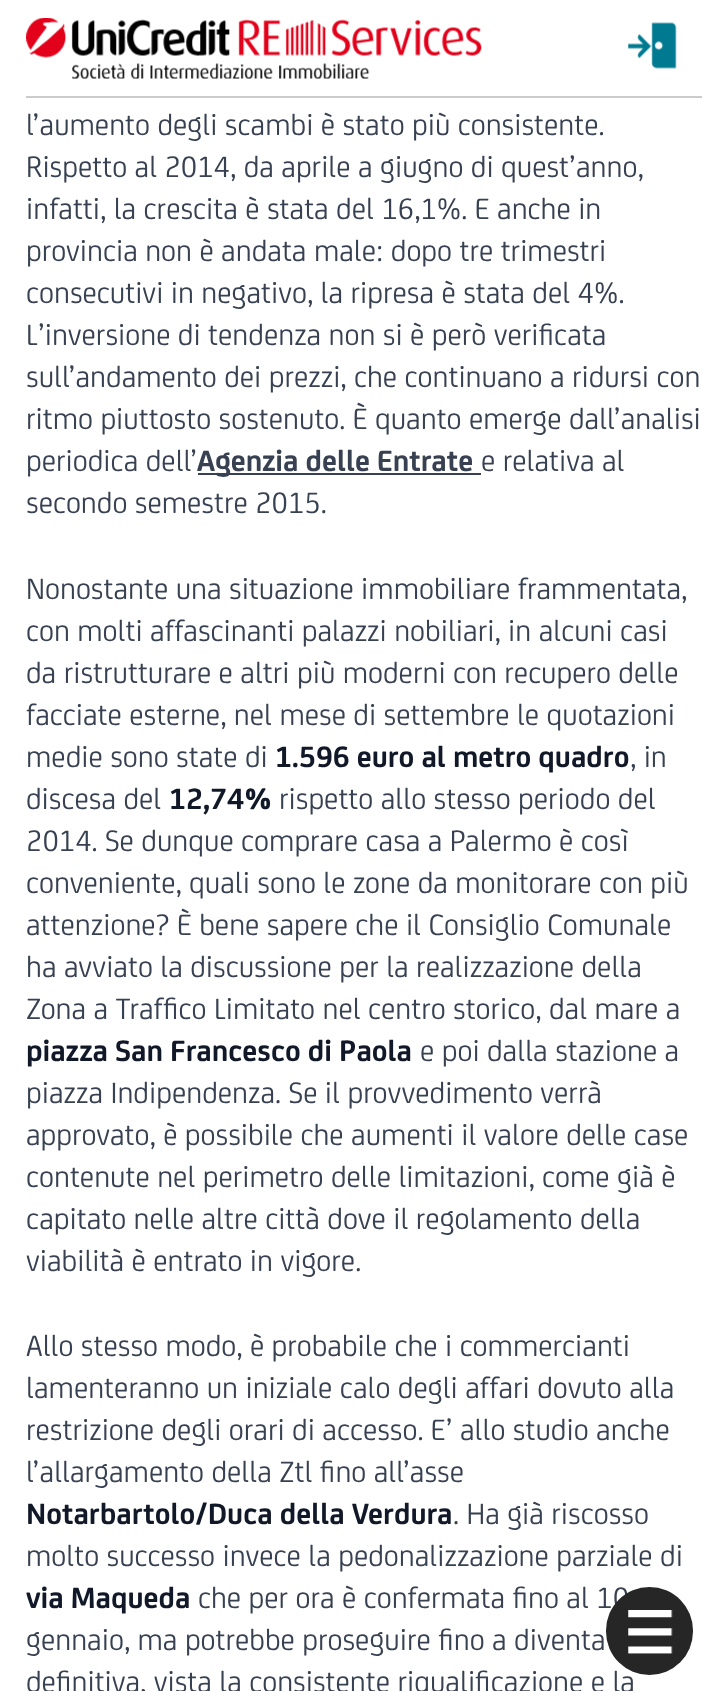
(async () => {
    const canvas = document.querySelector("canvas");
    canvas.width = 727;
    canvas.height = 1691;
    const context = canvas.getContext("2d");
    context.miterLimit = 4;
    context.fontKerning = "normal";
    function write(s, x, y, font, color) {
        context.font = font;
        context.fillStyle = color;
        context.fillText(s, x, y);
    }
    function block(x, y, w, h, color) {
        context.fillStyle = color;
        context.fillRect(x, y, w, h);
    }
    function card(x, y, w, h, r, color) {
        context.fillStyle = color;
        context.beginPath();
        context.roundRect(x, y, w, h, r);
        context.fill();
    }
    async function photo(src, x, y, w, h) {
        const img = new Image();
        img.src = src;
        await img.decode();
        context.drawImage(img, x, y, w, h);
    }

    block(0, 0, 727, 1691, "rgb(255, 255, 255)");
    block(26, 96, 676, 2, "rgb(204, 204, 204)");
    await photo("media/1.png", 26, 18, 456, 61);
    await photo("media/2.png", 628, 22, 49, 47);
    write("l’aumento degli scambi è stato più consistente.", 26, 135, "31.5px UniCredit", "rgb(55, 65, 81)");
    write("Rispetto al 2014, da aprile a giugno di quest’anno,", 26, 177, "31.5px UniCredit", "rgb(55, 65, 81)");
    write("infatti, la crescita è stata del 16,1%. E anche in", 26, 219, "31.5px UniCredit", "rgb(55, 65, 81)");
    write("provincia non è andata male: dopo tre trimestri", 26, 261, "31.5px UniCredit", "rgb(55, 65, 81)");
    write("consecutivi in negativo, la ripresa è stata del 4%.", 26, 303, "31.5px UniCredit", "rgb(55, 65, 81)");
    write("L’inversione di tendenza non si è però verificata", 26, 345, "31.5px UniCredit", "rgb(55, 65, 81)");
    write("sull’andamento dei prezzi, che continuano a ridursi con", 26, 387, "31.5px UniCredit", "rgb(55, 65, 81)");
    write("ritmo piuttosto sostenuto. È quanto emerge dall’analisi", 26, 429, "31.5px UniCredit", "rgb(55, 65, 81)");
    write("periodica dell’", 26, 471, "31.5px UniCredit", "rgb(55, 65, 81)");
    block(198, 473, 283, 2, "rgb(55, 65, 81)");
    write("Agenzia delle Entrate", 197, 471, "bold 31.5px UniCredit", "rgb(55, 65, 81)");
    write("e relativa al", 481, 471, "31.5px UniCredit", "rgb(55, 65, 81)");
    write("secondo semestre 2015.", 26, 513, "31.5px UniCredit", "rgb(55, 65, 81)");
    write("Nonostante una situazione immobiliare frammentata,", 26, 599, "31.5px UniCredit", "rgb(55, 65, 81)");
    write("con molti affascinanti palazzi nobiliari, in alcuni casi", 26, 641, "31.5px UniCredit", "rgb(55, 65, 81)");
    write("da ristrutturare e altri più moderni con recupero delle", 26, 683, "31.5px UniCredit", "rgb(55, 65, 81)");
    write("facciate esterne, nel mese di settembre le quotazioni", 26, 725, "31.5px UniCredit", "rgb(55, 65, 81)");
    write("medie sono state di", 26, 767, "31.5px UniCredit", "rgb(55, 65, 81)");
    write("1.596 euro al metro quadro", 275, 767, "bold 31.5px UniCredit", "rgb(17, 24, 39)");
    write(", in", 630, 767, "31.5px UniCredit", "rgb(55, 65, 81)");
    write("discesa del", 26, 809, "31.5px UniCredit", "rgb(55, 65, 81)");
    write("12,74%", 169, 809, "bold 31.5px UniCredit", "rgb(17, 24, 39)");
    write("rispetto allo stesso periodo del", 279, 809, "31.5px UniCredit", "rgb(55, 65, 81)");
    write("2014. Se dunque comprare casa a Palermo è così", 26, 851, "31.5px UniCredit", "rgb(55, 65, 81)");
    write("conveniente, quali sono le zone da monitorare con più", 26, 893, "31.5px UniCredit", "rgb(55, 65, 81)");
    write("attenzione? È bene sapere che il Consiglio Comunale", 26, 935, "31.5px UniCredit", "rgb(55, 65, 81)");
    write("ha avviato la discussione per la realizzazione della", 26, 977, "31.5px UniCredit", "rgb(55, 65, 81)");
    write("Zona a Traffico Limitato nel centro storico, dal mare a", 26, 1019, "31.5px UniCredit", "rgb(55, 65, 81)");
    write("piazza San Francesco di Paola", 26, 1061, "bold 31.5px UniCredit", "rgb(17, 24, 39)");
    write("e poi dalla stazione a", 420, 1061, "31.5px UniCredit", "rgb(55, 65, 81)");
    write("piazza Indipendenza. Se il provvedimento verrà", 26, 1103, "31.5px UniCredit", "rgb(55, 65, 81)");
    write("approvato, è possibile che aumenti il valore delle case", 26, 1145, "31.5px UniCredit", "rgb(55, 65, 81)");
    write("contenute nel perimetro delle limitazioni, come già è", 26, 1187, "31.5px UniCredit", "rgb(55, 65, 81)");
    write("capitato nelle altre città dove il regolamento della", 26, 1229, "31.5px UniCredit", "rgb(55, 65, 81)");
    write("viabilità è entrato in vigore.", 26, 1271, "31.5px UniCredit", "rgb(55, 65, 81)");
    write("Allo stesso modo, è probabile che i commercianti", 26, 1356, "31.5px UniCredit", "rgb(55, 65, 81)");
    write("lamenteranno un iniziale calo degli affari dovuto alla", 26, 1398, "31.5px UniCredit", "rgb(55, 65, 81)");
    write("restrizione degli orari di accesso. E’ allo studio anche", 26, 1440, "31.5px UniCredit", "rgb(55, 65, 81)");
    write("l’allargamento della Ztl fino all’asse", 26, 1482, "31.5px UniCredit", "rgb(55, 65, 81)");
    write("Notarbartolo/Duca della Verdura", 26, 1524, "bold 31.5px UniCredit", "rgb(17, 24, 39)");
    write(". Ha già riscosso", 453, 1524, "31.5px UniCredit", "rgb(55, 65, 81)");
    write("molto successo invece la pedonalizzazione parziale di", 26, 1566, "31.5px UniCredit", "rgb(55, 65, 81)");
    write("via Maqueda", 26, 1608, "bold 31.5px UniCredit", "rgb(17, 24, 39)");
    write("che per ora è confermata fino al 10", 198, 1608, "31.5px UniCredit", "rgb(55, 65, 81)");
    write("gennaio, ma potrebbe proseguire fino a diventa", 26, 1650, "31.5px UniCredit", "rgb(55, 65, 81)");
    write("definitiva, vista la consistente riqualificazione e la", 26, 1692, "31.5px UniCredit", "rgb(55, 65, 81)");
    card(606, 1587, 87, 88, 43.5, "rgb(38, 38, 38)");
    await photo("media/3.png", 628, 1610, 45, 44);
})();
